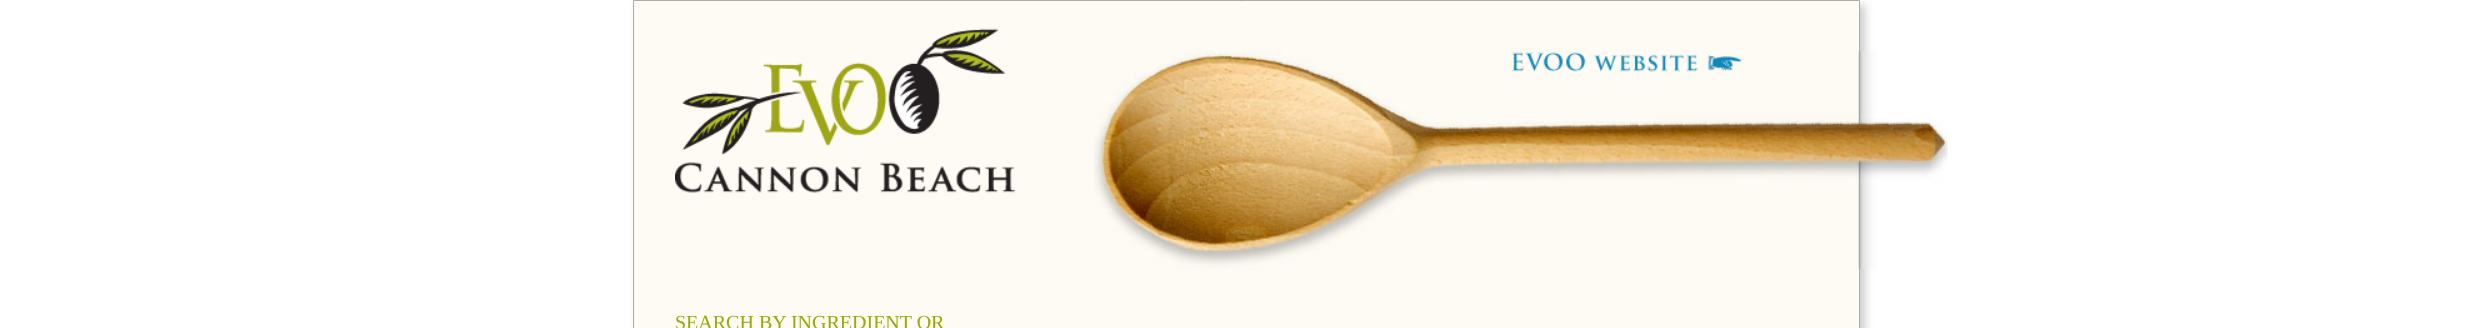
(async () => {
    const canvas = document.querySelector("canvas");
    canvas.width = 2492;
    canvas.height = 328;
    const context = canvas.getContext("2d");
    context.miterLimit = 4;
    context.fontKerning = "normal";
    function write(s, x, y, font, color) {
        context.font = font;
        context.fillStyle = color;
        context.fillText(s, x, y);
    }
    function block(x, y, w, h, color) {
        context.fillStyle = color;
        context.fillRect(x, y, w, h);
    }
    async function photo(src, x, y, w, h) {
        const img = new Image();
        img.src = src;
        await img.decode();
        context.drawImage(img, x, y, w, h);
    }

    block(0, 0, 2492, 328, "rgb(255, 255, 255)");
    context.fillStyle = "rgb(204, 204, 204)";
    context.filter = "blur(4.5px)";
    context.beginPath();
    context.rect(638, 5, 1227, 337);
    context.fill();
    context.filter = "none";
    context.fillStyle = "rgb(253, 251, 243)";
    context.beginPath();
    context.rect(633.5, 0.5, 1226, 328);
    context.fill();
    context.strokeStyle = "rgb(170, 170, 170)";
    context.stroke();
    await photo("media/1.png", 675, 28, 341, 165);
    await photo("media/2.png", 1094, 51, 854, 218);
    await photo("media/3.png", 1511, 52, 231, 20);
    write("SEARCH BY INGREDIENT OR", 675, 329, "20px Liberation Serif", "rgb(154, 169, 4)");
})();
